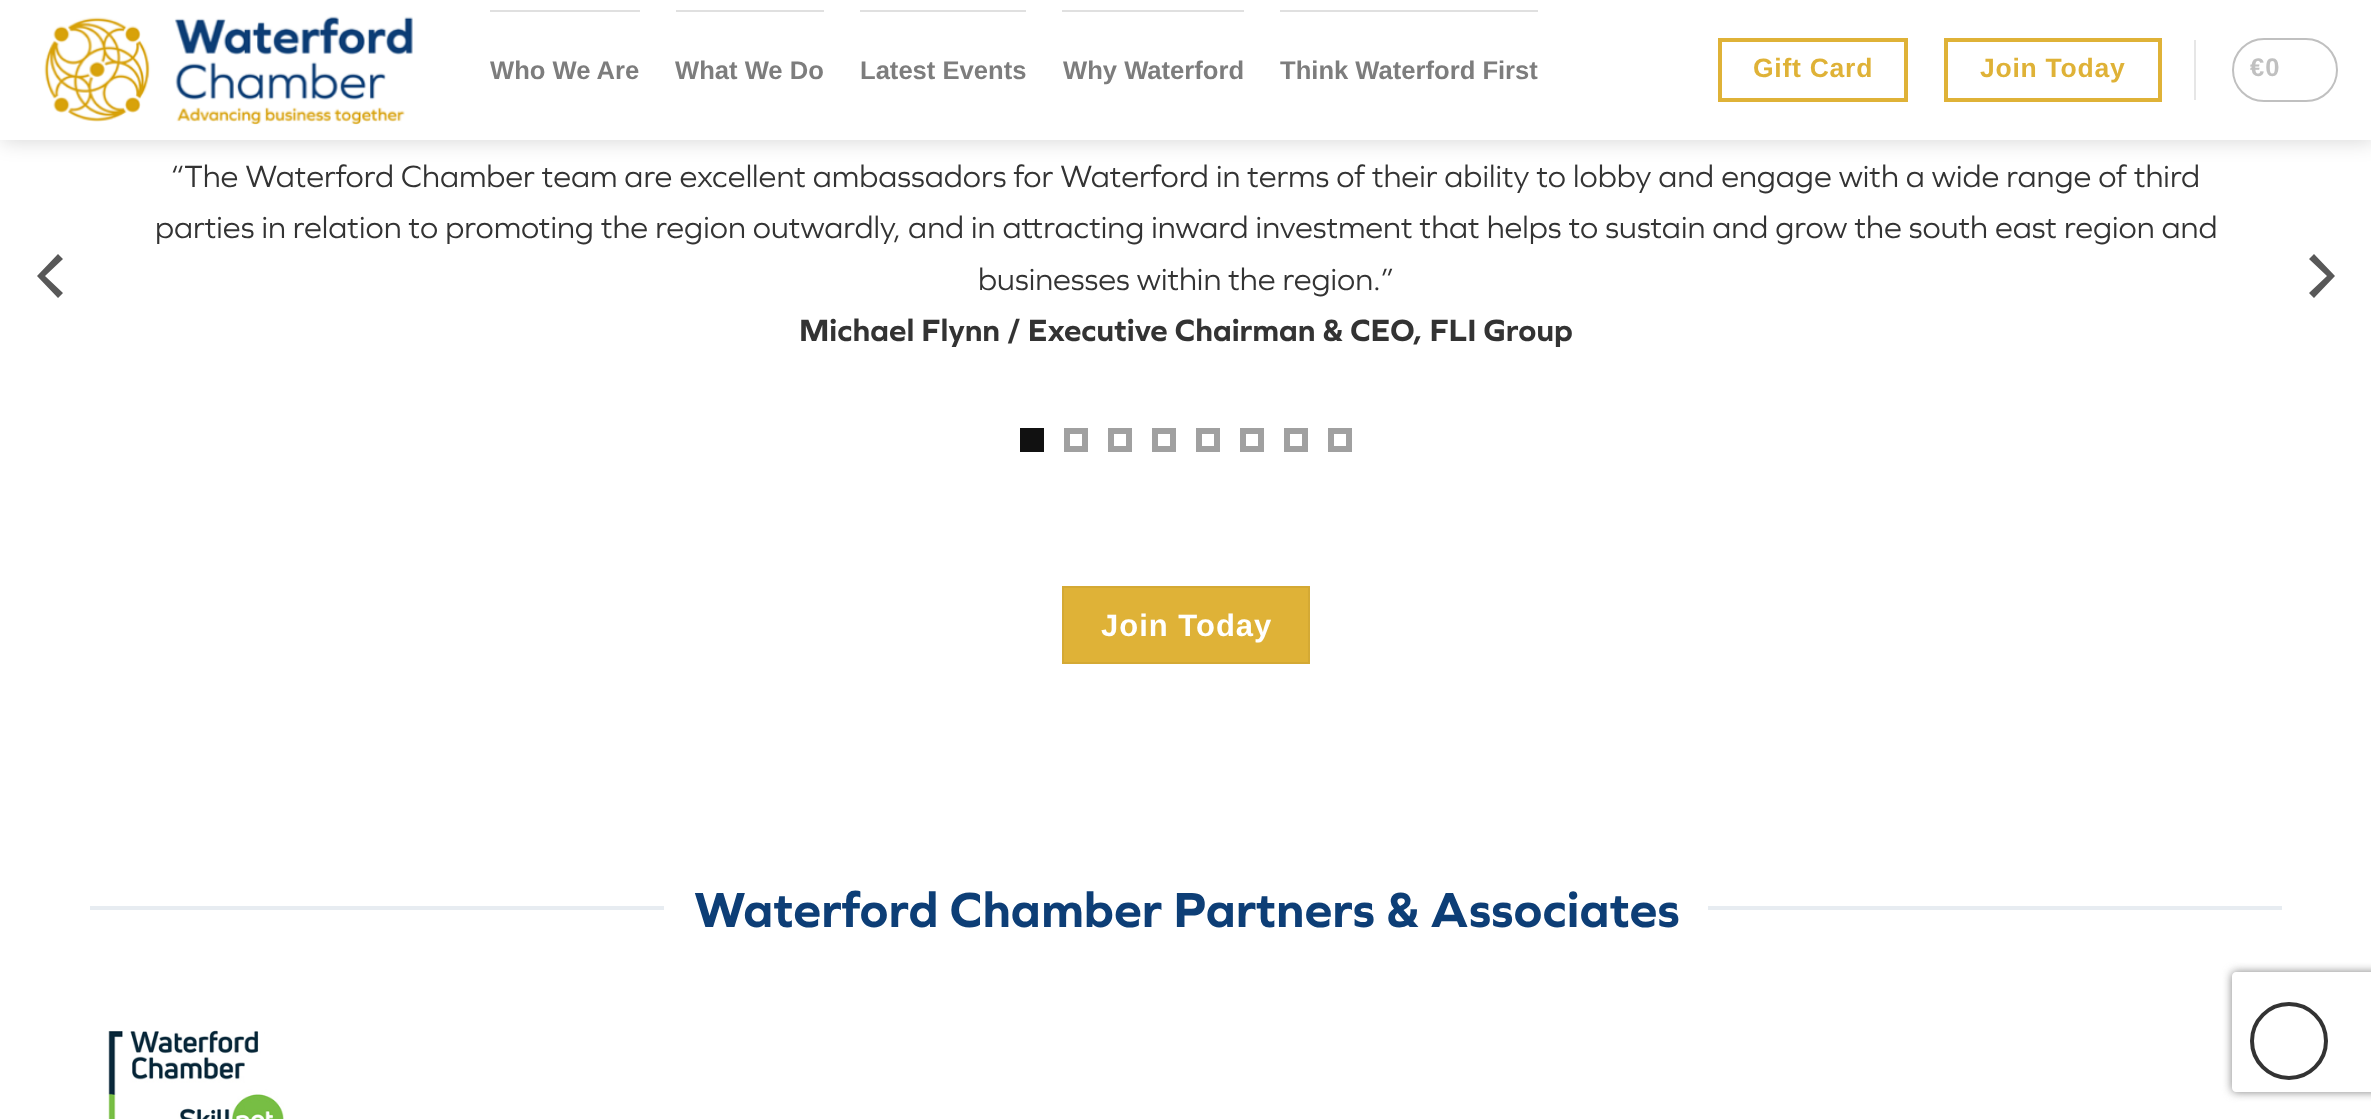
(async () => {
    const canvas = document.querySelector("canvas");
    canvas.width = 2371;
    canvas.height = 1119;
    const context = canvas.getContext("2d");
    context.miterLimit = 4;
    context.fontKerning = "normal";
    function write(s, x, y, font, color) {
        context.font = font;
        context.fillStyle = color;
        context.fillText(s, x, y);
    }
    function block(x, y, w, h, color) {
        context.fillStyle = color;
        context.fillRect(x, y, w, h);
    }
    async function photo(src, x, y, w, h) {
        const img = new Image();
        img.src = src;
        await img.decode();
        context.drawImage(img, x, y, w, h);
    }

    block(0, 0, 2371, 1119, "rgb(255, 255, 255)");
    context.fillStyle = "rgba(0, 0, 0, 0.15)";
    context.filter = "blur(10px)";
    context.beginPath();
    context.rect(2, 2, 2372, 140);
    context.fill();
    context.filter = "none";
    block(0, 0, 2371, 140, "rgb(255, 255, 255)");
    await photo("media/1.png", 44, 16, 369, 109);
    block(490, 10, 150, 2, "rgb(224, 224, 224)");
    write("Who We Are", 490, 79, "bold 25.6px Liberation Sans", "rgb(125, 125, 125)");
    block(676, 10, 148, 2, "rgb(224, 224, 224)");
    write("What We Do", 675, 79, "bold 25.6px Liberation Sans", "rgb(125, 125, 125)");
    block(860, 10, 166, 2, "rgb(224, 224, 224)");
    write("Latest Events", 860, 79, "bold 25.6px Liberation Sans", "rgb(125, 125, 125)");
    block(1062, 10, 182, 2, "rgb(224, 224, 224)");
    write("Why Waterford", 1063, 79, "bold 25.6px Liberation Sans", "rgb(125, 125, 125)");
    block(1280, 10, 258, 2, "rgb(224, 224, 224)");
    write("Think Waterford First", 1280, 79, "bold 25.6px Liberation Sans", "rgb(125, 125, 125)");
    context.strokeStyle = "rgb(223, 178, 55)";
    context.lineWidth = 4;
    context.strokeRect(1720, 40, 186, 60);
    context.letterSpacing = "0.75px";
    write("Gift Card", 1753, 77, "bold 26.5px Liberation Sans", "rgb(223, 178, 55)");
    context.strokeRect(1946, 40, 214, 60);
    write("Join Today", 1980, 77, "bold 26.5px Liberation Sans", "rgb(223, 178, 55)");
    block(2194, 40, 2, 60, "rgb(230, 230, 230)");
    context.beginPath();
    context.roundRect(2233, 39, 104, 62, 31);
    context.strokeStyle = "rgb(192, 192, 192)";
    context.lineWidth = 2;
    context.stroke();
    context.letterSpacing = "1px";
    write("€0", 2250, 76, "bold 25.6px Liberation Sans", "rgb(192, 192, 192)");
    context.fillStyle = "rgb(88, 88, 88)";
    context.beginPath();
    context.moveTo(37, 276);
    context.lineTo(58, 298);
    context.lineTo(63, 293);
    context.lineTo(45, 276);
    context.lineTo(63, 259);
    context.lineTo(58, 254);
    context.closePath();
    context.fill();
    context.letterSpacing = "0px";
    write("“The Waterford Chamber team are excellent ambassadors for Waterford in terms of their ability to lobby and engage with a wide range of third", 171, 187, "32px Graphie", "rgb(51, 51, 51)");
    write("parties in relation to promoting the region outwardly, and in attracting inward investment that helps to sustain and grow the south east region and", 155, 238, "32px Graphie", "rgb(51, 51, 51)");
    write("businesses within the region.”", 978, 290, "32px Graphie", "rgb(51, 51, 51)");
    write("Michael Flynn / Executive Chairman & CEO, FLI Group", 799, 341, "bold 32px Graphie", "rgb(51, 51, 51)");
    context.fillStyle = "rgb(88, 88, 88)";
    context.beginPath();
    context.moveTo(2335, 276);
    context.lineTo(2314, 254);
    context.lineTo(2309, 259);
    context.lineTo(2327, 276);
    context.lineTo(2309, 293);
    context.lineTo(2314, 298);
    context.closePath();
    context.fill();
    block(1020, 428, 24, 24, "rgb(17, 17, 17)");
    context.strokeStyle = "rgb(160, 160, 160)";
    context.lineWidth = 6;
    context.strokeRect(1067, 431, 18, 18);
    context.strokeRect(1111, 431, 18, 18);
    context.strokeRect(1155, 431, 18, 18);
    context.strokeRect(1199, 431, 18, 18);
    context.strokeRect(1243, 431, 18, 18);
    context.strokeRect(1287, 431, 18, 18);
    context.strokeRect(1331, 431, 18, 18);
    context.fillStyle = "rgb(223, 178, 55)";
    context.beginPath();
    context.rect(1063, 587, 246, 76);
    context.fill();
    context.strokeStyle = "rgb(212, 169, 52)";
    context.lineWidth = 2;
    context.stroke();
    context.letterSpacing = "1px";
    write("Join Today", 1101, 636, "bold 31px Liberation Sans", "rgb(255, 255, 255)");
    block(90, 906, 574, 4, "rgb(231, 236, 241)");
    context.letterSpacing = "0px";
    write("Waterford Chamber Partners & Associates", 694, 927, "bold 51.25px Graphie", "rgb(13, 62, 118)");
    block(1708, 906, 574, 4, "rgb(231, 236, 241)");
    await photo("media/2.png", 108, 1030, 176, 89);
    context.save();
    context.beginPath();
    context.moveTo(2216, 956);
    context.lineTo(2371, 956);
    context.lineTo(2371, 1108);
    context.lineTo(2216, 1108);
    context.closePath();
    context.moveTo(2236, 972);
    context.lineTo(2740, 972);
    context.bezierCurveTo(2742, 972, 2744, 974, 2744, 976);
    context.lineTo(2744, 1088);
    context.bezierCurveTo(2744, 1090, 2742, 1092, 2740, 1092);
    context.lineTo(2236, 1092);
    context.bezierCurveTo(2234, 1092, 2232, 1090, 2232, 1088);
    context.lineTo(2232, 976);
    context.bezierCurveTo(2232, 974, 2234, 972, 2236, 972);
    context.closePath();
    context.clip("evenodd");
    context.fillStyle = "rgb(128, 128, 128)";
    context.filter = "blur(5px)";
    context.beginPath();
    context.roundRect(2232, 972, 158, 120, 4);
    context.fill();
    context.filter = "none";
    context.restore();
    context.beginPath();
    context.arc(2289, 1041, 37, 0, Math.PI * 2);
    context.strokeStyle = "rgb(51, 51, 51)";
    context.lineWidth = 4;
    context.stroke();
})();
